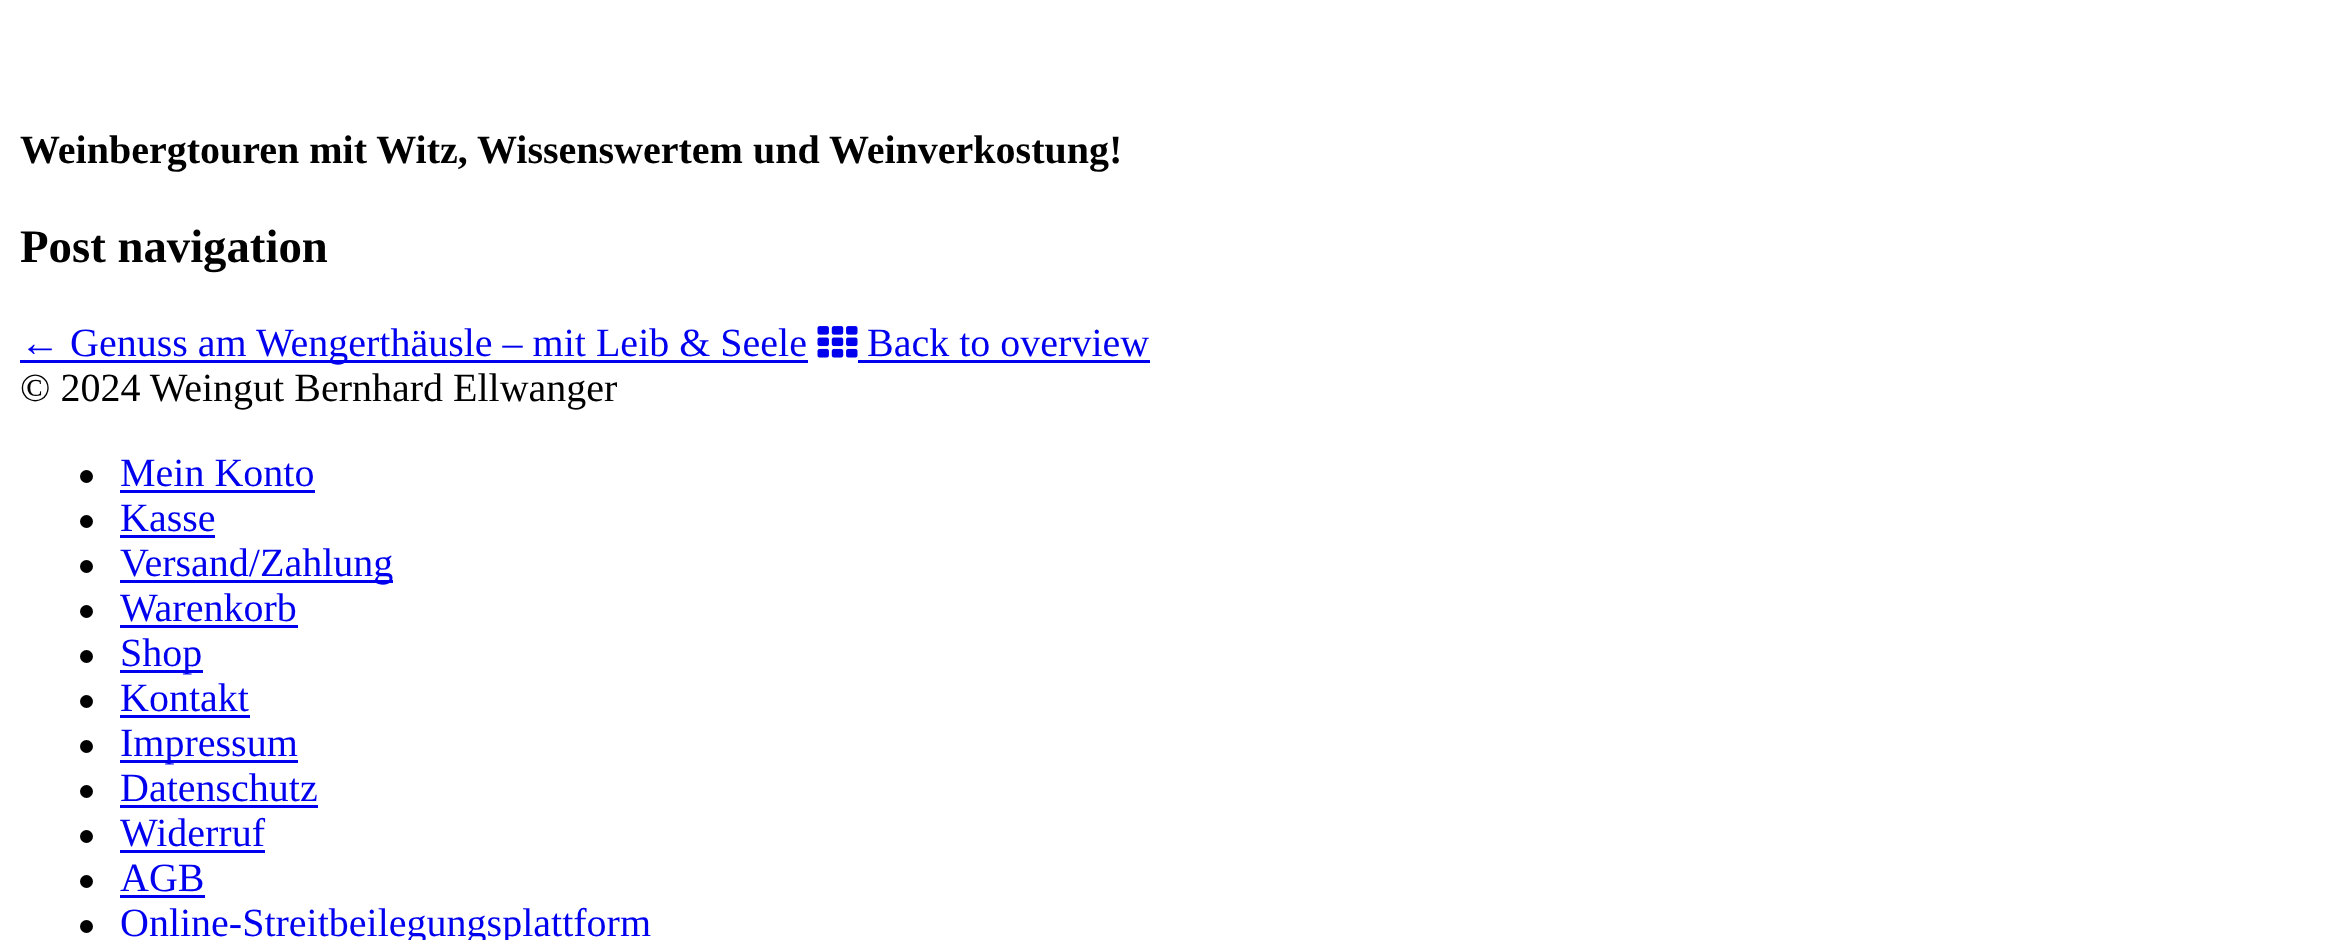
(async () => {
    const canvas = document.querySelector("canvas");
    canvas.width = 2352;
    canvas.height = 940;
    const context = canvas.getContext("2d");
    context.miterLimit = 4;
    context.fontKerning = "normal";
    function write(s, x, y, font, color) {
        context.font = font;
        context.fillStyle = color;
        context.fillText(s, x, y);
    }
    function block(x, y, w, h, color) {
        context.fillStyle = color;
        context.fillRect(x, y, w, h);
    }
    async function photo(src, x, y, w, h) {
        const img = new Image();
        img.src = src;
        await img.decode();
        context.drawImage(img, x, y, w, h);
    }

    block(0, 0, 2352, 940, "rgb(255, 255, 255)");
    write("Weinbergtouren mit Witz, Wissenswertem und Weinverkostung!", 20, 163, "bold 40px Liberation Serif", "rgb(0, 0, 0)");
    write("Post navigation", 20, 262, "bold 46.75px Liberation Serif", "rgb(0, 0, 0)");
    block(20, 360, 788, 3, "rgb(0, 0, 238)");
    write("← Genuss am Wengerthäusle – mit Leib & Seele", 20, 356, "40px Liberation Serif", "rgb(0, 0, 238)");
    await photo("media/1.png", 817, 326, 41, 32);
    write("Back to overview", 867, 356, "40px Liberation Serif", "rgb(0, 0, 238)");
    block(858, 360, 292, 3, "rgb(0, 0, 238)");
    write("© 2024 Weingut Bernhard Ellwanger", 20, 401, "40px Liberation Serif", "rgb(0, 0, 0)");
    context.beginPath();
    context.arc(86.5, 476.5, 6.5, 0, Math.PI * 2);
    context.fill();
    write("Mein Konto", 120, 486, "40px Liberation Serif", "rgb(0, 0, 238)");
    block(120, 490, 195, 3, "rgb(0, 0, 238)");
    context.fillStyle = "rgb(0, 0, 0)";
    context.beginPath();
    context.arc(86.5, 521.5, 6.5, 0, Math.PI * 2);
    context.fill();
    write("Kasse", 120, 531, "40px Liberation Serif", "rgb(0, 0, 238)");
    block(120, 535, 95, 3, "rgb(0, 0, 238)");
    context.fillStyle = "rgb(0, 0, 0)";
    context.beginPath();
    context.arc(86.5, 566.5, 6.5, 0, Math.PI * 2);
    context.fill();
    block(120, 580, 273, 3, "rgb(0, 0, 238)");
    write("Versand/Zahlung", 120, 576, "40px Liberation Serif", "rgb(0, 0, 238)");
    context.fillStyle = "rgb(0, 0, 0)";
    context.beginPath();
    context.arc(86.5, 611.5, 6.5, 0, Math.PI * 2);
    context.fill();
    write("Warenkorb", 120, 621, "40px Liberation Serif", "rgb(0, 0, 238)");
    block(120, 625, 178, 3, "rgb(0, 0, 238)");
    context.fillStyle = "rgb(0, 0, 0)";
    context.beginPath();
    context.arc(86.5, 656.5, 6.5, 0, Math.PI * 2);
    context.fill();
    block(120, 670, 83, 3, "rgb(0, 0, 238)");
    write("Shop", 120, 666, "40px Liberation Serif", "rgb(0, 0, 238)");
    context.fillStyle = "rgb(0, 0, 0)";
    context.beginPath();
    context.arc(86.5, 701.5, 6.5, 0, Math.PI * 2);
    context.fill();
    write("Kontakt", 120, 711, "40px Liberation Serif", "rgb(0, 0, 238)");
    block(120, 715, 130, 3, "rgb(0, 0, 238)");
    context.fillStyle = "rgb(0, 0, 0)";
    context.beginPath();
    context.arc(86.5, 746.5, 6.5, 0, Math.PI * 2);
    context.fill();
    block(120, 760, 178, 3, "rgb(0, 0, 238)");
    write("Impressum", 120, 756, "40px Liberation Serif", "rgb(0, 0, 238)");
    context.fillStyle = "rgb(0, 0, 0)";
    context.beginPath();
    context.arc(86.5, 791.5, 6.5, 0, Math.PI * 2);
    context.fill();
    write("Datenschutz", 120, 801, "40px Liberation Serif", "rgb(0, 0, 238)");
    block(120, 805, 198, 3, "rgb(0, 0, 238)");
    context.fillStyle = "rgb(0, 0, 0)";
    context.beginPath();
    context.arc(86.5, 836.5, 6.5, 0, Math.PI * 2);
    context.fill();
    write("Widerruf", 120, 846, "40px Liberation Serif", "rgb(0, 0, 238)");
    block(120, 850, 145, 3, "rgb(0, 0, 238)");
    context.fillStyle = "rgb(0, 0, 0)";
    context.beginPath();
    context.arc(86.5, 881.5, 6.5, 0, Math.PI * 2);
    context.fill();
    write("AGB", 120, 891, "40px Liberation Serif", "rgb(0, 0, 238)");
    block(120, 895, 85, 3, "rgb(0, 0, 238)");
    context.fillStyle = "rgb(0, 0, 0)";
    context.beginPath();
    context.arc(86.5, 926.5, 6.5, 0, Math.PI * 2);
    context.fill();
    write("Online-Streitbeilegungsplattform", 120, 936, "40px Liberation Serif", "rgb(0, 0, 238)");
})();
